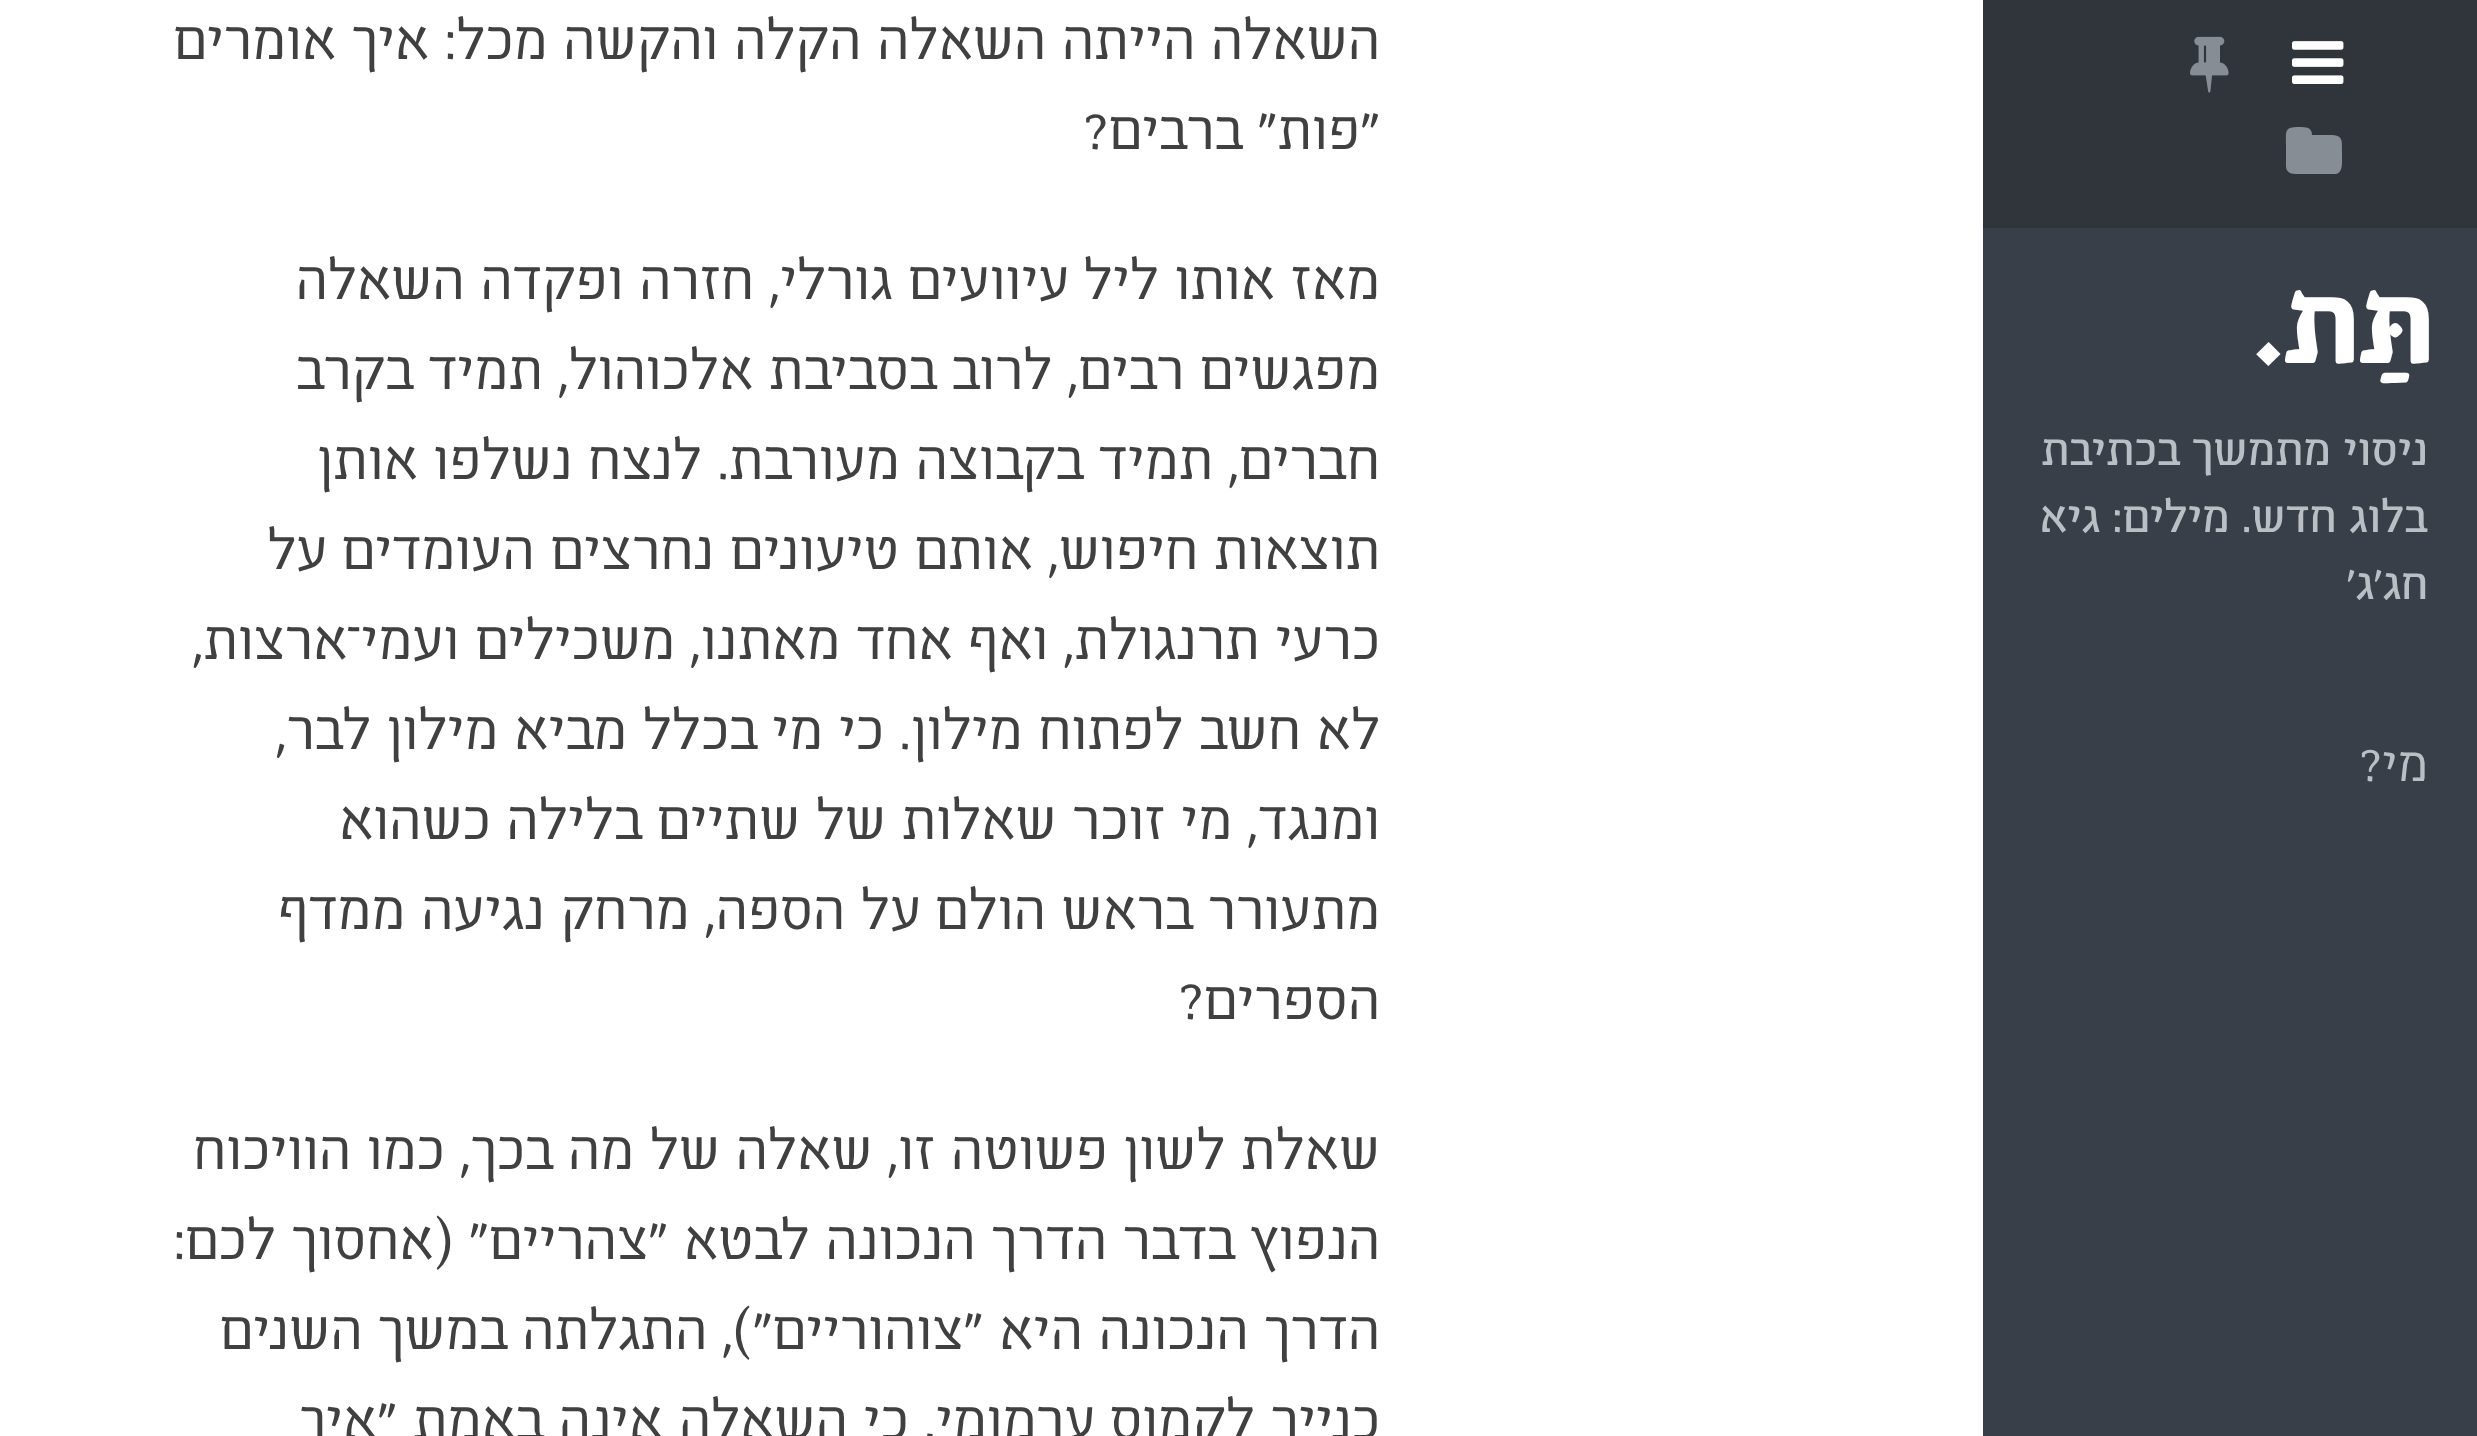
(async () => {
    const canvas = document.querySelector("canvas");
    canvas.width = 2477;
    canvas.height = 1436;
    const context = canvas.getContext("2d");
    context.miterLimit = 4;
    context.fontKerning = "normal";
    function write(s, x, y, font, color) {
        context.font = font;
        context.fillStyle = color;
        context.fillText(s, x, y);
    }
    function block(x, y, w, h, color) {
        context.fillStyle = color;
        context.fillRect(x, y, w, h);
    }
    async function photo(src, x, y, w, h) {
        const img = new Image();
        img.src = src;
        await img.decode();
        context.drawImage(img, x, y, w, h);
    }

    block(0, 0, 2477, 1436, "rgb(255, 255, 255)");
    block(1983, 228, 494, 1208, "rgb(56, 63, 73)");
    block(1983, 0, 494, 228, "rgb(48, 53, 60)");
    await photo("media/1.png", 2292, 41, 52, 43);
    await photo("media/2.png", 2190, 36, 39, 57);
    context.fillStyle = "rgb(135, 141, 148)";
    context.beginPath();
    context.moveTo(2286, 166);
    context.lineTo(2286, 145);
    context.bezierCurveTo(2286, 131, 2284, 127, 2299, 127);
    context.bezierCurveTo(2306, 127, 2312, 127, 2312, 135);
    context.lineTo(2330, 135);
    context.bezierCurveTo(2343, 135, 2342, 140, 2342, 151);
    context.lineTo(2342, 163);
    context.bezierCurveTo(2342, 167, 2341, 173, 2336, 174);
    context.lineTo(2300, 174);
    context.bezierCurveTo(2295, 174, 2286, 175, 2286, 166);
    context.closePath();
    context.fill();
    context.letterSpacing = "3px";
    context.direction = "rtl";
    write("תַּת.", 2434, 363, "bold 120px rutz", "rgb(255, 255, 255)");
    context.letterSpacing = "0px";
    write("ניסוי מתמשך בכתיבת", 2428, 465, "48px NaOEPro", "rgb(186, 191, 197)");
    write("בלוג חדש. מילים: גיא", 2428, 532, "48px NaOEPro", "rgb(186, 191, 197)");
    write("חג׳ג׳", 2428, 599, "48px NaOEPro", "rgb(186, 191, 197)");
    write("מי?", 2428, 781, "900 54px NaOEPro", "rgb(186, 191, 197)");
    write("השאלה הייתה השאלה הקלה והקשה מכל: איך אומרים", 1380, 59, "900 60px NaOEPro", "rgb(64, 64, 64)");
    write("״פות״ ברבים?", 1380, 149, "900 60px NaOEPro", "rgb(64, 64, 64)");
    write("מאז אותו ליל עיוועים גורלי, חזרה ופקדה השאלה", 1380, 299, "900 60px NaOEPro", "rgb(64, 64, 64)");
    write("מפגשים רבים, לרוב בסביבת אלכוהול, תמיד בקרב", 1380, 389, "900 60px NaOEPro", "rgb(64, 64, 64)");
    write("חברים, תמיד בקבוצה מעורבת. לנצח נשלפו אותן", 1380, 479, "900 60px NaOEPro", "rgb(64, 64, 64)");
    write("תוצאות חיפוש, אותם טיעונים נחרצים העומדים על", 1380, 569, "900 60px NaOEPro", "rgb(64, 64, 64)");
    write("כרעי תרנגולת, ואף אחד מאתנו, משכילים ועמי־ארצות,", 1380, 659, "900 60px NaOEPro", "rgb(64, 64, 64)");
    write("לא חשב לפתוח מילון. כי מי בכלל מביא מילון לבר,", 1380, 749, "900 60px NaOEPro", "rgb(64, 64, 64)");
    write("ומנגד, מי זוכר שאלות של שתיים בלילה כשהוא", 1380, 839, "900 60px NaOEPro", "rgb(64, 64, 64)");
    write("מתעורר בראש הולם על הספה, מרחק נגיעה ממדף", 1380, 929, "900 60px NaOEPro", "rgb(64, 64, 64)");
    write("הספרים?", 1380, 1019, "900 60px NaOEPro", "rgb(64, 64, 64)");
    write("שאלת לשון פשוטה זו, שאלה של מה בכך, כמו הוויכוח", 1380, 1169, "900 60px NaOEPro", "rgb(64, 64, 64)");
    write("הנפוץ בדבר הדרך הנכונה לבטא ״צהריים״ (אחסוך לכם:", 1380, 1259, "900 60px NaOEPro", "rgb(64, 64, 64)");
    write("הדרך הנכונה היא ״צוהוריים״), התגלתה במשך השנים", 1380, 1349, "900 60px NaOEPro", "rgb(64, 64, 64)");
    write("כנייר לקמוס ערמומי. כי השאלה אינה באמת ״איך", 1380, 1439, "900 60px NaOEPro", "rgb(64, 64, 64)");
})();
